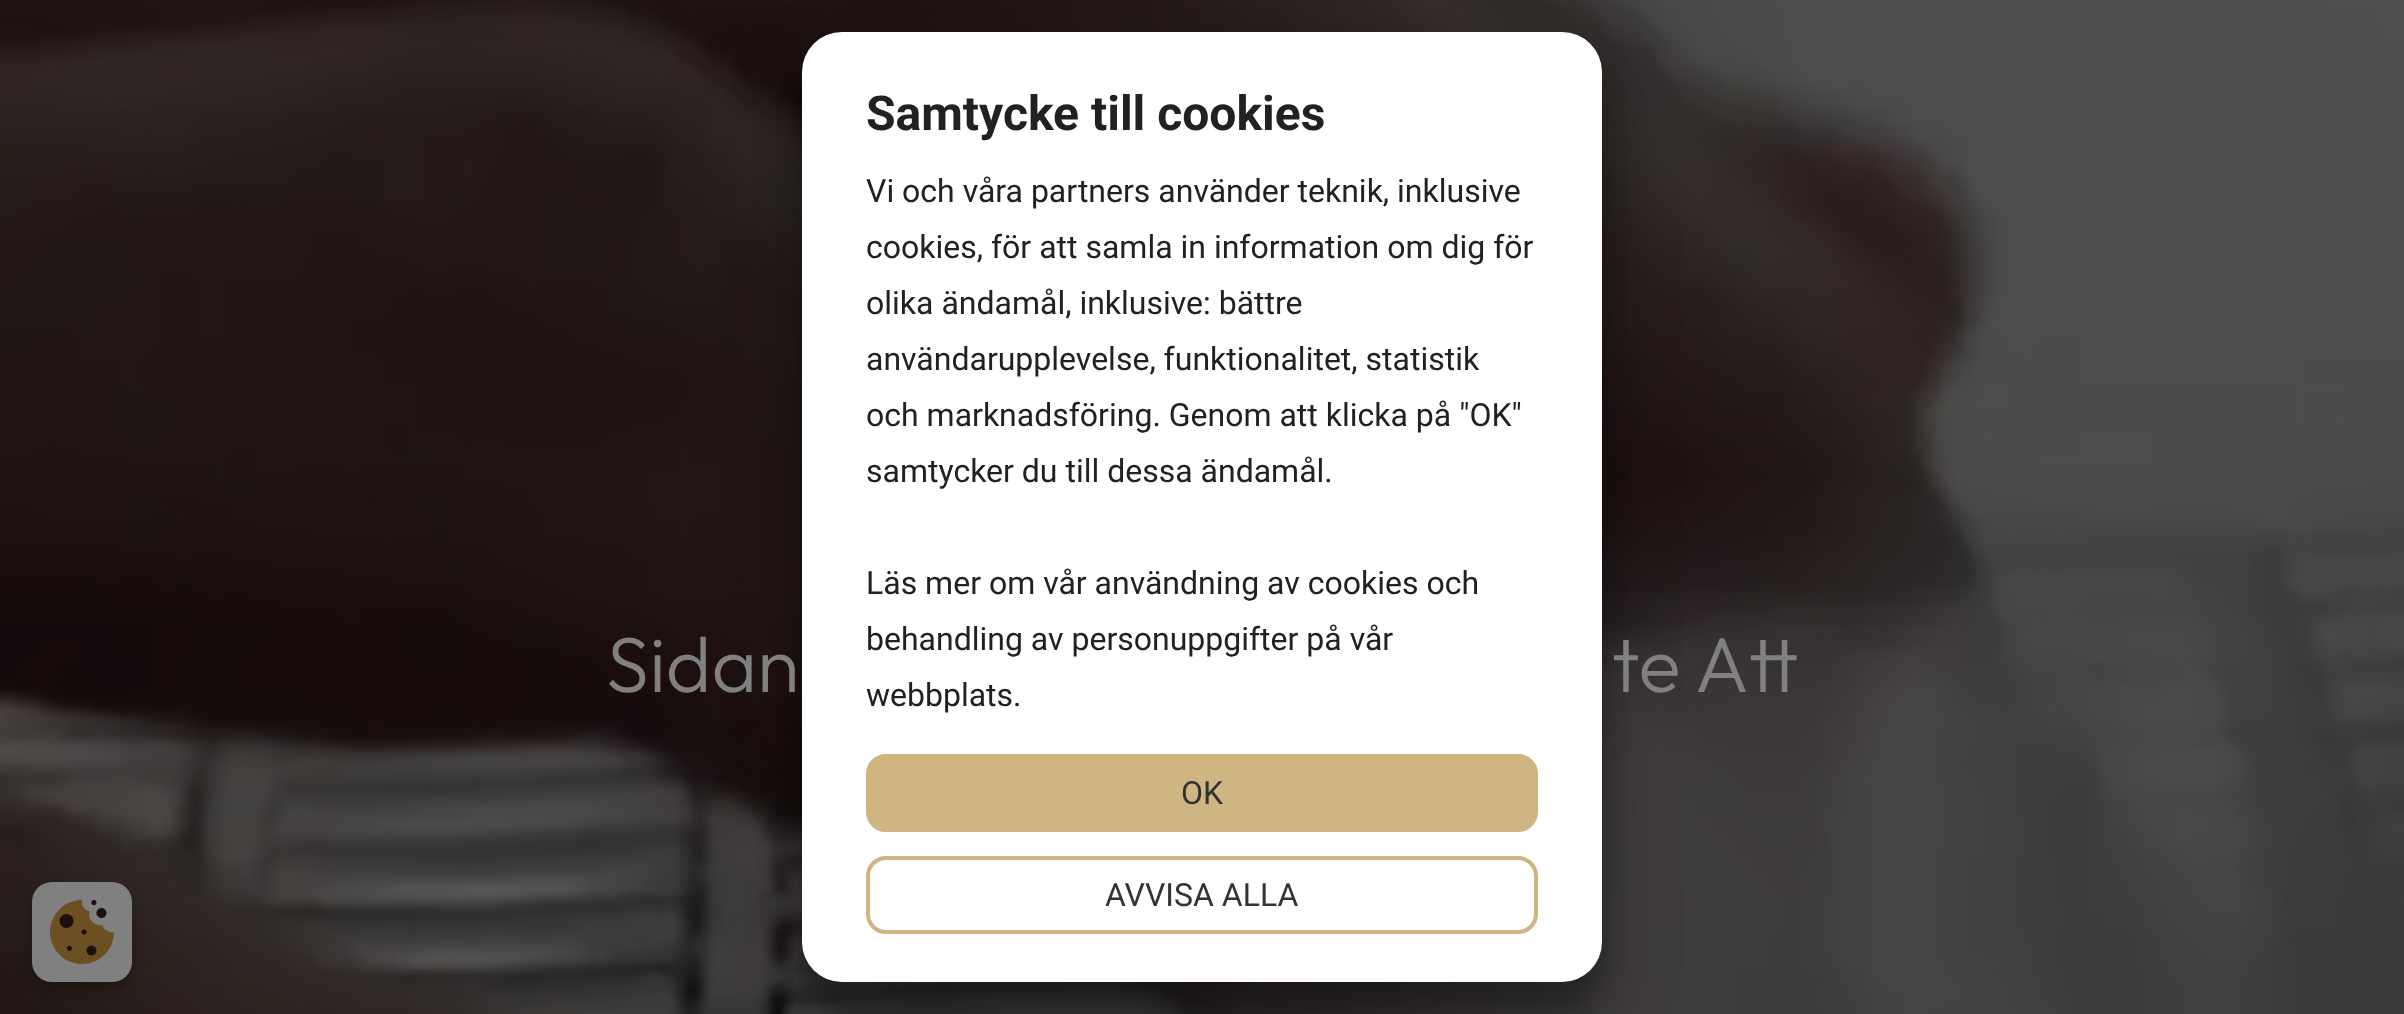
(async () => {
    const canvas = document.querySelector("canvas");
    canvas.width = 2404;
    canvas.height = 1014;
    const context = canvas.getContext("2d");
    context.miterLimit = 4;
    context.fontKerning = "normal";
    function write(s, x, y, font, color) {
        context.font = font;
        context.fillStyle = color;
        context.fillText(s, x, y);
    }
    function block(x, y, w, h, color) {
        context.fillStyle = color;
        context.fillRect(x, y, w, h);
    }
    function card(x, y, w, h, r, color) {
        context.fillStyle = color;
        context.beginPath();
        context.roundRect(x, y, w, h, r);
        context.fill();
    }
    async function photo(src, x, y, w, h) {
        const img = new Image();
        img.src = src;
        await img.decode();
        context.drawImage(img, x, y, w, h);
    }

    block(0, 0, 2404, 1014, "rgb(255, 255, 255)");
    await photo("media/1.png", 0, 0, 2404, 1014);
    context.fillStyle = "rgba(0, 0, 0, 0.22)";
    context.filter = "blur(12px)";
    context.beginPath();
    context.roundRect(802, 62, 800, 950, 40);
    context.fill();
    context.filter = "none";
    context.fillStyle = "rgba(0, 0, 0, 0.3)";
    context.filter = "blur(38px)";
    context.beginPath();
    context.roundRect(802, 70, 800, 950, 40);
    context.fill();
    context.filter = "none";
    card(802, 32, 800, 950, 40, "rgb(255, 255, 255)");
    write("Samtycke till cookies", 866, 130, "bold 48px Roboto", "rgb(33, 33, 33)");
    write("Vi och våra partners använder teknik, inklusive", 866, 202, "32px Roboto", "rgb(33, 33, 33)");
    write("cookies, för att samla in information om dig för", 866, 258, "32px Roboto", "rgb(33, 33, 33)");
    write("olika ändamål, inklusive: bättre", 866, 314, "32px Roboto", "rgb(33, 33, 33)");
    write("användarupplevelse, funktionalitet, statistik", 866, 370, "32px Roboto", "rgb(33, 33, 33)");
    write("och marknadsföring. Genom att klicka på \"OK\"", 866, 426, "32px Roboto", "rgb(33, 33, 33)");
    write("samtycker du till dessa ändamål.", 866, 482, "32px Roboto", "rgb(33, 33, 33)");
    write("Läs mer om vår användning av cookies och", 866, 594, "32px Roboto", "rgb(33, 33, 33)");
    write("behandling av personuppgifter på vår", 866, 650, "32px Roboto", "rgb(33, 33, 33)");
    write("webbplats.", 866, 706, "32px Roboto", "rgb(33, 33, 33)");
    context.fillStyle = "rgb(206, 181, 130)";
    context.beginPath();
    context.roundRect(868, 756, 668, 74, 18);
    context.fill();
    context.strokeStyle = "rgb(206, 181, 130)";
    context.lineWidth = 4;
    context.stroke();
    write("OK", 1181, 804, "32px Roboto", "rgb(51, 51, 51)");
    context.beginPath();
    context.roundRect(868, 858, 668, 74, 18);
    context.stroke();
    write("AVVISA ALLA", 1105, 906, "32px Roboto", "rgb(51, 51, 51)");
    write("Sidan", 606, 692, "300 78px Outfit", "rgb(128, 128, 128)");
    write("te Att", 1612, 692, "300 78px Outfit", "rgb(128, 128, 128)");
    context.fillStyle = "rgba(0, 0, 0, 0.23)";
    context.filter = "blur(6px)";
    context.beginPath();
    context.roundRect(32, 888, 100, 100, 20);
    context.fill();
    context.filter = "none";
    card(32, 882, 100, 100, 20, "rgb(128, 128, 128)");
    await photo("media/2.png", 50, 900, 64, 64);
})();
